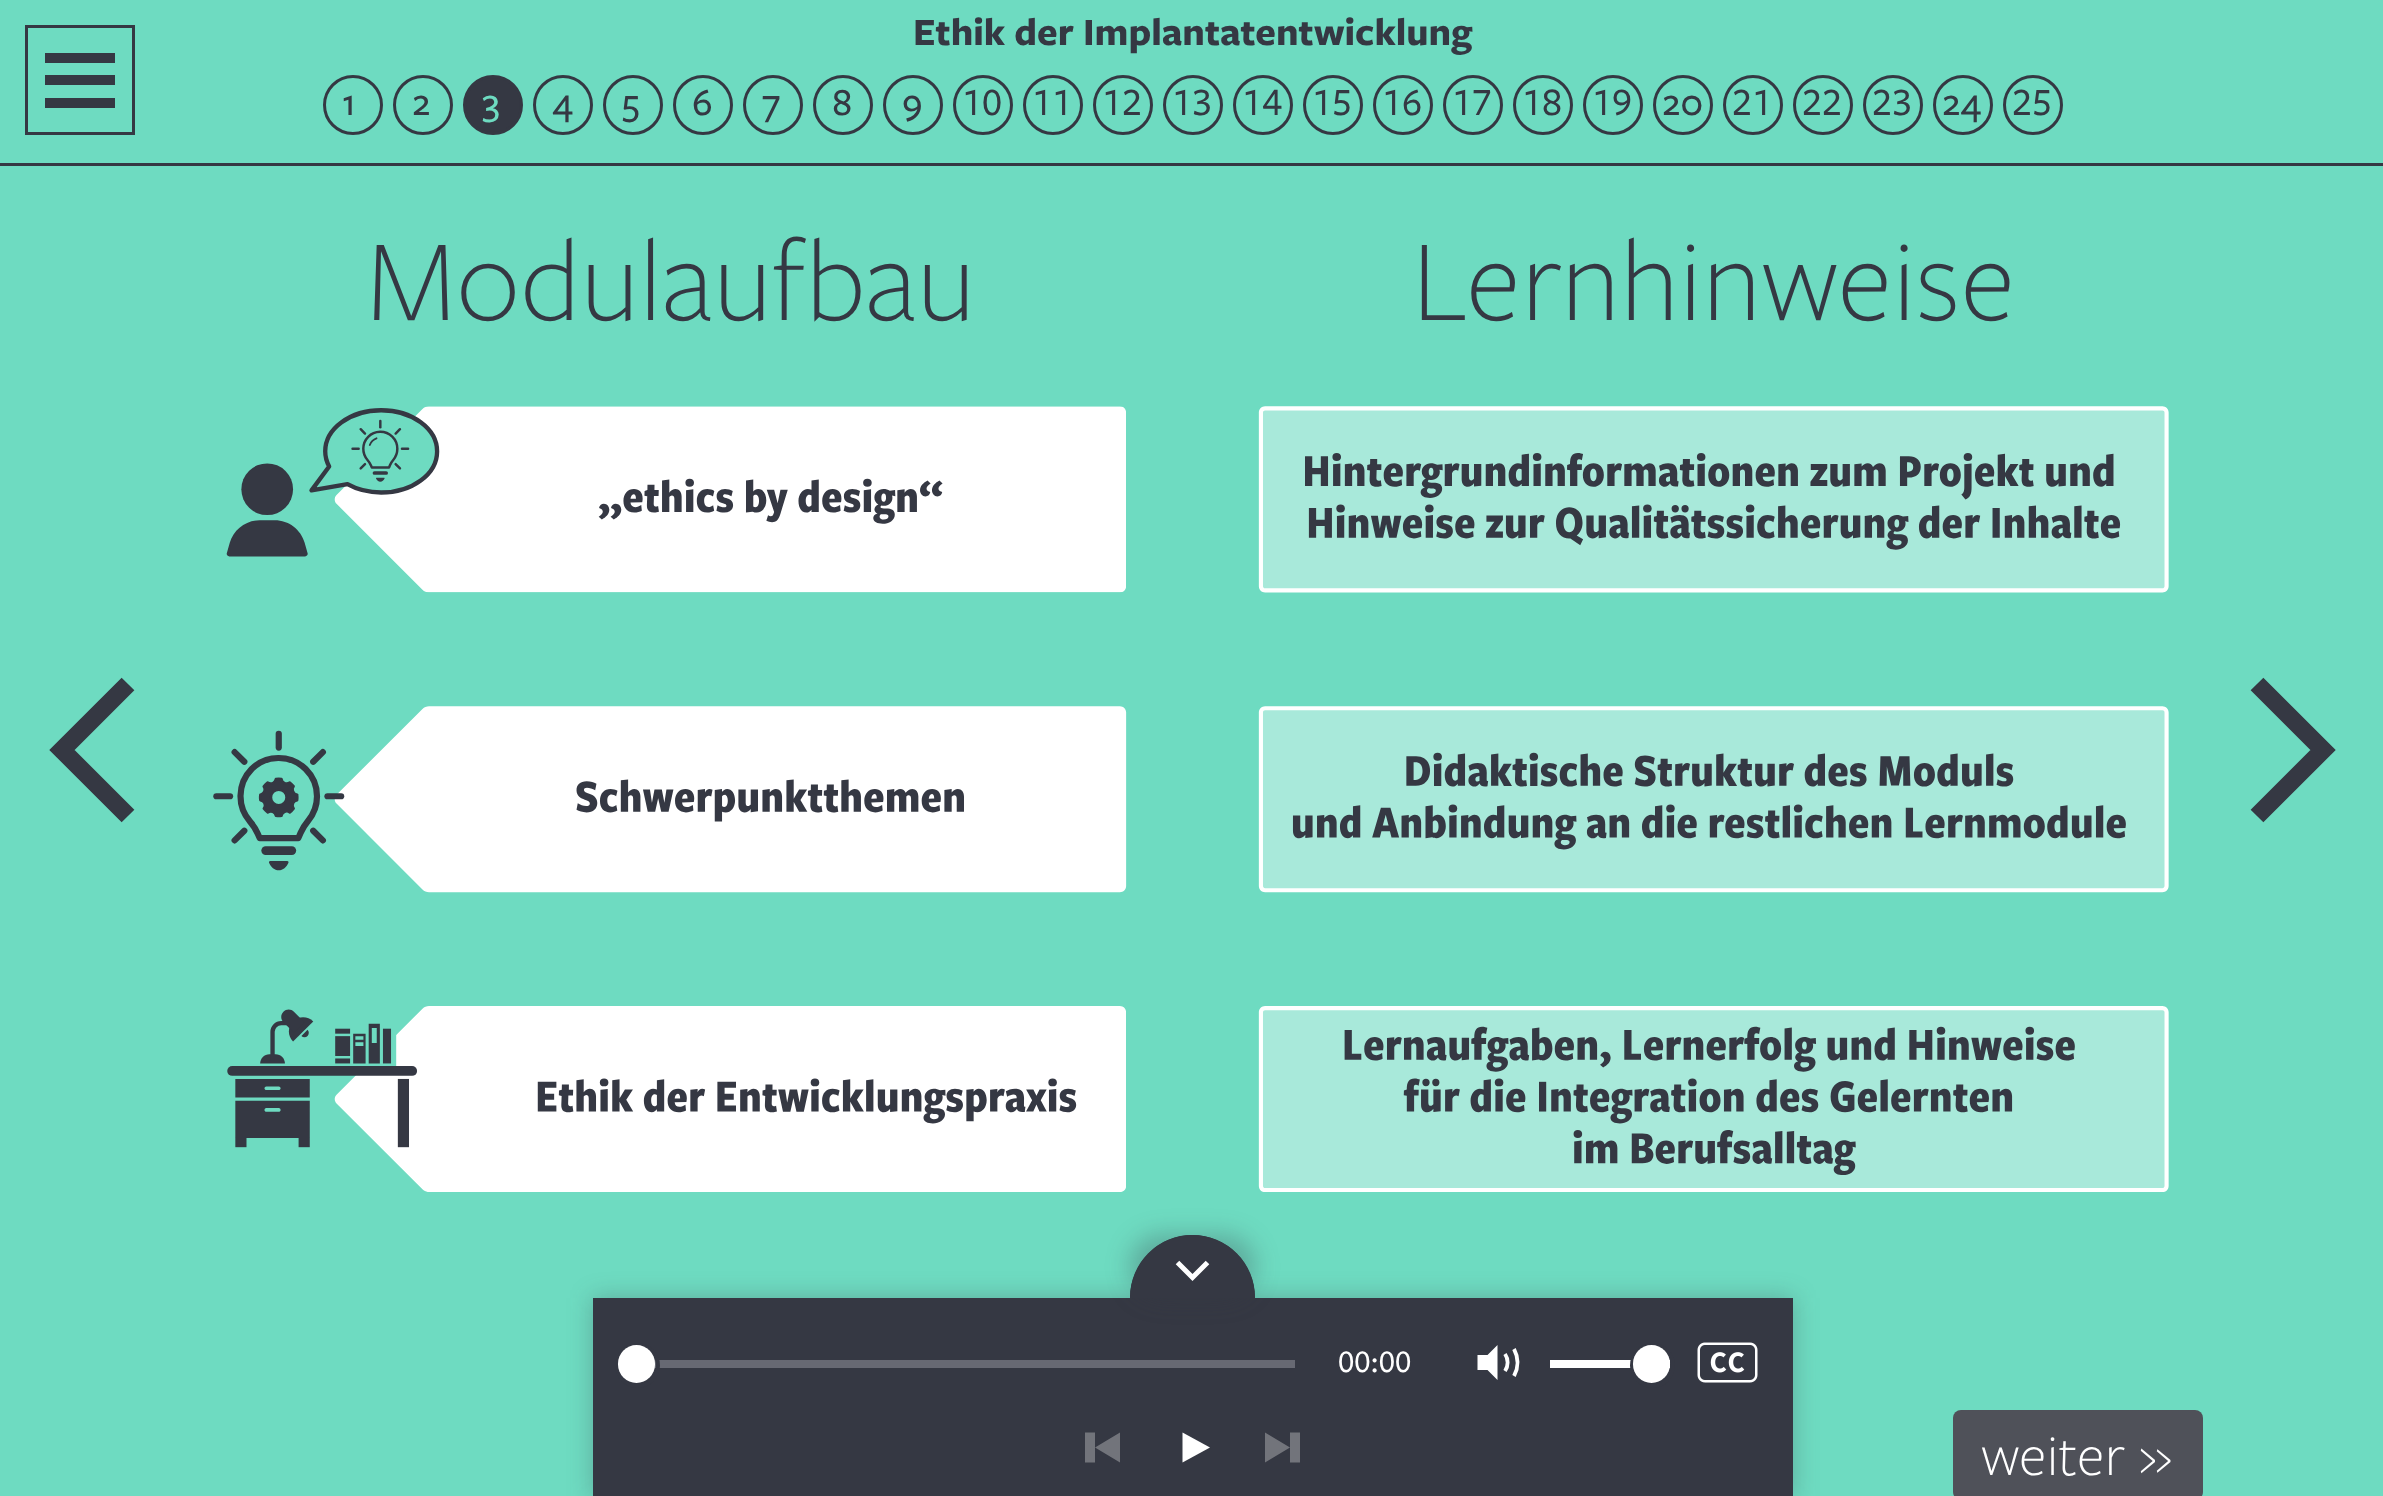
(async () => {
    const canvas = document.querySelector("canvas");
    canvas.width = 2383;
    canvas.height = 1496;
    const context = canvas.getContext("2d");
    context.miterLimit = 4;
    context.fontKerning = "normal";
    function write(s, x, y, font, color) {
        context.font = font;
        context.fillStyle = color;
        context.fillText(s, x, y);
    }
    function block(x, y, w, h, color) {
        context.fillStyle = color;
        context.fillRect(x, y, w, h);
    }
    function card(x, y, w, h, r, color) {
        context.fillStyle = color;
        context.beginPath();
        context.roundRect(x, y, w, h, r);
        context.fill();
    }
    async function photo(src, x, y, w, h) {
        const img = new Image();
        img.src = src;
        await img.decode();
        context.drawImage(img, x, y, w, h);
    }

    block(0, 0, 2383, 1496, "rgb(110, 219, 193)");
    block(45, 53, 70, 10, "rgb(53, 56, 67)");
    block(45, 75, 70, 10, "rgb(53, 56, 67)");
    block(45, 98, 70, 10, "rgb(53, 56, 67)");
    context.beginPath();
    context.moveTo(132, 28);
    context.lineTo(132, 132);
    context.lineTo(28, 132);
    context.lineTo(28, 28);
    context.lineTo(132, 28);
    context.moveTo(135, 25);
    context.lineTo(25, 25);
    context.lineTo(25, 135);
    context.lineTo(135, 135);
    context.closePath();
    context.fill();
    write("Ethik der Implantatentwicklung", 913, 45, "bold 40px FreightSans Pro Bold", "rgb(53, 56, 67)");
    context.beginPath();
    context.arc(353, 105, 28.5, 0, Math.PI * 2);
    context.strokeStyle = "rgb(53, 56, 67)";
    context.lineWidth = 3;
    context.stroke();
    write("1", 342, 115, "500 40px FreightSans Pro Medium", "rgb(53, 56, 67)");
    context.beginPath();
    context.arc(423, 105, 28.5, 0, Math.PI * 2);
    context.stroke();
    write("2", 412, 115, "500 40px FreightSans Pro Medium", "rgb(53, 56, 67)");
    context.beginPath();
    context.arc(493, 105, 28.5, 0, Math.PI * 2);
    context.fill();
    context.stroke();
    write("3", 482, 115, "500 40px FreightSans Pro Medium", "rgb(110, 219, 193)");
    context.beginPath();
    context.arc(563, 105, 28.5, 0, Math.PI * 2);
    context.stroke();
    write("4", 552, 115, "500 40px FreightSans Pro Medium", "rgb(53, 56, 67)");
    context.beginPath();
    context.arc(633, 105, 28.5, 0, Math.PI * 2);
    context.stroke();
    write("5", 622, 115, "500 40px FreightSans Pro Medium", "rgb(53, 56, 67)");
    context.beginPath();
    context.arc(703, 105, 28.5, 0, Math.PI * 2);
    context.stroke();
    write("6", 692, 115, "500 40px FreightSans Pro Medium", "rgb(53, 56, 67)");
    context.beginPath();
    context.arc(773, 105, 28.5, 0, Math.PI * 2);
    context.stroke();
    write("7", 762, 115, "500 40px FreightSans Pro Medium", "rgb(53, 56, 67)");
    context.beginPath();
    context.arc(843, 105, 28.5, 0, Math.PI * 2);
    context.stroke();
    write("8", 832, 115, "500 40px FreightSans Pro Medium", "rgb(53, 56, 67)");
    context.beginPath();
    context.arc(913, 105, 28.5, 0, Math.PI * 2);
    context.stroke();
    write("9", 902, 115, "500 40px FreightSans Pro Medium", "rgb(53, 56, 67)");
    context.beginPath();
    context.arc(983, 105, 28.5, 0, Math.PI * 2);
    context.stroke();
    write("10", 962, 115, "500 40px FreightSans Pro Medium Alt", "rgb(53, 56, 67)");
    context.beginPath();
    context.arc(1053, 105, 28.5, 0, Math.PI * 2);
    context.stroke();
    write("11", 1032, 115, "500 40px FreightSans Pro Medium Alt", "rgb(53, 56, 67)");
    context.beginPath();
    context.arc(1123, 105, 28.5, 0, Math.PI * 2);
    context.stroke();
    write("12", 1102, 115, "500 40px FreightSans Pro Medium Alt", "rgb(53, 56, 67)");
    context.beginPath();
    context.arc(1193, 105, 28.5, 0, Math.PI * 2);
    context.stroke();
    write("13", 1172, 115, "500 40px FreightSans Pro Medium Alt", "rgb(53, 56, 67)");
    context.beginPath();
    context.arc(1263, 105, 28.5, 0, Math.PI * 2);
    context.stroke();
    write("14", 1242, 115, "500 40px FreightSans Pro Medium Alt", "rgb(53, 56, 67)");
    context.beginPath();
    context.arc(1333, 105, 28.5, 0, Math.PI * 2);
    context.stroke();
    write("15", 1312, 115, "500 40px FreightSans Pro Medium Alt", "rgb(53, 56, 67)");
    context.beginPath();
    context.arc(1403, 105, 28.5, 0, Math.PI * 2);
    context.stroke();
    write("16", 1382, 115, "500 40px FreightSans Pro Medium Alt", "rgb(53, 56, 67)");
    context.beginPath();
    context.arc(1473, 105, 28.5, 0, Math.PI * 2);
    context.stroke();
    write("17", 1452, 115, "500 40px FreightSans Pro Medium Alt", "rgb(53, 56, 67)");
    context.beginPath();
    context.arc(1543, 105, 28.5, 0, Math.PI * 2);
    context.stroke();
    write("18", 1522, 115, "500 40px FreightSans Pro Medium Alt", "rgb(53, 56, 67)");
    context.beginPath();
    context.arc(1613, 105, 28.5, 0, Math.PI * 2);
    context.stroke();
    write("19", 1592, 115, "500 40px FreightSans Pro Medium Alt", "rgb(53, 56, 67)");
    context.beginPath();
    context.arc(1683, 105, 28.5, 0, Math.PI * 2);
    context.stroke();
    write("20", 1662, 115, "500 40px FreightSans Pro Medium", "rgb(53, 56, 67)");
    context.beginPath();
    context.arc(1753, 105, 28.5, 0, Math.PI * 2);
    context.stroke();
    write("21", 1732, 115, "500 40px FreightSans Pro Medium Alt", "rgb(53, 56, 67)");
    context.beginPath();
    context.arc(1823, 105, 28.5, 0, Math.PI * 2);
    context.stroke();
    write("22", 1802, 115, "500 40px FreightSans Pro Medium Alt", "rgb(53, 56, 67)");
    context.beginPath();
    context.arc(1893, 105, 28.5, 0, Math.PI * 2);
    context.stroke();
    write("23", 1872, 115, "500 40px FreightSans Pro Medium Alt", "rgb(53, 56, 67)");
    context.beginPath();
    context.arc(1963, 105, 28.5, 0, Math.PI * 2);
    context.stroke();
    write("24", 1942, 115, "500 40px FreightSans Pro Medium", "rgb(53, 56, 67)");
    context.beginPath();
    context.arc(2033, 105, 28.5, 0, Math.PI * 2);
    context.stroke();
    write("25", 2012, 115, "500 40px FreightSans Pro Medium Alt", "rgb(53, 56, 67)");
    context.beginPath();
    context.moveTo(128, 684);
    context.lineTo(62, 750);
    context.lineTo(128, 816);
    context.lineWidth = 18;
    context.stroke();
    context.beginPath();
    context.moveTo(2257, 684);
    context.lineTo(2323, 750);
    context.lineTo(2257, 816);
    context.stroke();
    block(0, 163, 2383, 3, "rgb(53, 56, 67)");
    write("Modulaufbau", 366, 320, "300 120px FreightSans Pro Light", "rgb(53, 56, 67)");
    await photo("media/1.png", 213, 406, 914, 786);
    write("Lernhinweise", 1412, 320, "300 120px FreightSans Pro Light", "rgb(53, 56, 67)");
    await photo("media/2.png", 1258, 406, 911, 786);
    card(1953, 1410, 250, 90, 8, "rgb(79, 81, 89)");
    write("weiter »", 1981, 1475, "300 60px FreightSans Pro Light", "rgb(255, 255, 255)");
    context.fillStyle = "rgba(53, 56, 67, 0.3)";
    context.filter = "blur(12.5px)";
    context.beginPath();
    context.rect(593, 1298, 1200, 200);
    context.fill();
    context.filter = "none";
    block(593, 1298, 1200, 198, "rgb(53, 56, 67)");
    context.fillStyle = "rgba(53, 56, 67, 0.3)";
    context.filter = "blur(12.5px)";
    context.beginPath();
    context.roundRect(1130, 1235, 125, 63, 63);
    context.fill();
    context.filter = "none";
    context.fillStyle = "rgb(53, 56, 67)";
    context.beginPath();
    context.roundRect(1130, 1235, 125, 63, [62.5, 62.5, 0, 0]);
    context.fill();
    context.beginPath();
    context.moveTo(1255, 1298);
    context.bezierCurveTo(1255, 1263, 1227, 1235, 1192, 1235);
    context.bezierCurveTo(1176, 1235, 1161, 1241, 1150, 1252);
    context.bezierCurveTo(1138, 1263, 1130, 1280, 1130, 1298);
    context.closePath();
    context.fill();
    context.beginPath();
    context.moveTo(1177.5, 1262.5);
    context.lineTo(1192.5, 1277.5);
    context.lineTo(1207.5, 1262.5);
    context.strokeStyle = "rgb(255, 255, 255)";
    context.lineWidth = 5;
    context.stroke();
    block(654, 1360, 641, 8, "rgb(103, 105, 115)");
    context.beginPath();
    context.arc(637.5, 1365.5, 20.5, 0, Math.PI * 2);
    context.strokeStyle = "rgb(53, 56, 67)";
    context.lineWidth = 4;
    context.stroke();
    card(618, 1345, 37, 38, 18.5, "rgb(255, 255, 255)");
    write("00:00", 1338, 1372, "500 32.5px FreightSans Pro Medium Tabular", "rgb(255, 255, 255)");
    context.beginPath();
    context.moveTo(1497.5, 1345);
    context.lineTo(1487.5, 1355);
    context.lineTo(1477.5, 1355);
    context.lineTo(1477.5, 1370);
    context.lineTo(1487.5, 1370);
    context.lineTo(1497.5, 1380);
    context.closePath();
    context.fill();
    context.beginPath();
    context.moveTo(1505, 1354);
    context.bezierCurveTo(1508.5, 1359, 1508.5, 1366, 1505, 1371);
    context.moveTo(1514, 1349);
    context.bezierCurveTo(1518.5, 1357.5, 1518.5, 1367.5, 1514, 1376);
    context.strokeStyle = "rgb(255, 255, 255)";
    context.lineWidth = 3.8;
    context.stroke();
    block(1550, 1360, 120, 8, "rgb(255, 255, 255)");
    context.beginPath();
    context.arc(1652.5, 1365.5, 20.5, 0, Math.PI * 2);
    context.strokeStyle = "rgb(53, 56, 67)";
    context.lineWidth = 4;
    context.stroke();
    card(1633, 1345, 37, 38, 18.5, "rgb(255, 255, 255)");
    await photo("media/3.png", 1697, 1342, 61, 41);
    context.fillStyle = "rgb(114, 116, 123)";
    context.beginPath();
    context.moveTo(1085, 1432.5);
    context.lineTo(1085, 1462.5);
    context.lineTo(1095, 1462.5);
    context.lineTo(1095, 1432.5);
    context.closePath();
    context.moveTo(1095, 1447.5);
    context.lineTo(1120, 1462.5);
    context.lineTo(1120, 1432.5);
    context.closePath();
    context.fill();
    context.fillStyle = "rgb(255, 255, 255)";
    context.beginPath();
    context.moveTo(1182.5, 1432.5);
    context.lineTo(1182.5, 1462.5);
    context.lineTo(1210, 1447.5);
    context.closePath();
    context.fill();
    context.fillStyle = "rgb(114, 116, 123)";
    context.beginPath();
    context.moveTo(1265, 1432.5);
    context.lineTo(1265, 1462.5);
    context.lineTo(1290, 1447.5);
    context.closePath();
    context.moveTo(1290, 1447.5);
    context.lineTo(1290, 1462.5);
    context.lineTo(1300, 1462.5);
    context.lineTo(1300, 1432.5);
    context.lineTo(1290, 1432.5);
    context.closePath();
    context.fill();
})();
